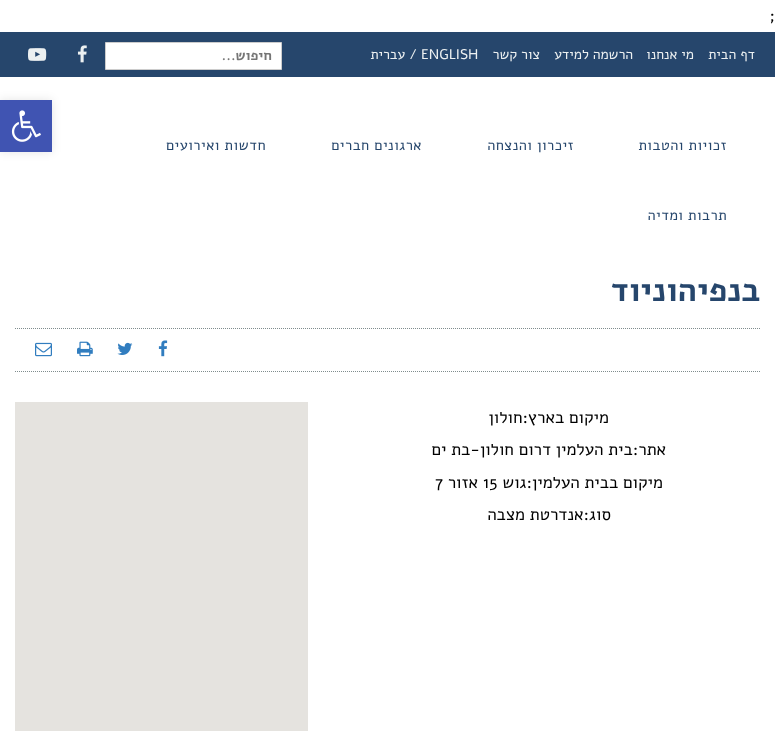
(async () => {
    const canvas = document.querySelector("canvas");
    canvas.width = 775;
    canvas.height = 731;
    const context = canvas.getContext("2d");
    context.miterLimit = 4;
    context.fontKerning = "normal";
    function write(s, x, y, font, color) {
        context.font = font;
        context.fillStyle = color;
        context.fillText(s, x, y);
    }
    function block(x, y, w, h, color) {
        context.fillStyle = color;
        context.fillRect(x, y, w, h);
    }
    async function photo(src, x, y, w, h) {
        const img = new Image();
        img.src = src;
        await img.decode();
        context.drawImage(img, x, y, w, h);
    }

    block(0, 0, 775, 731, "rgb(255, 255, 255)");
    write(";", 769, 21, "17px Alef", "rgb(0, 0, 0)");
    block(0, 32, 775, 45, "rgb(38, 70, 108)");
    context.direction = "rtl";
    write("דף הבית", 755, 59, "14px Alef", "rgb(236, 240, 241)");
    write("מי אנחנו", 694, 59, "14px Alef", "rgb(236, 240, 241)");
    write("הרשמה למידע", 633, 59, "14px Alef", "rgb(236, 240, 241)");
    write("צור קשר", 540, 59, "14px Alef", "rgb(236, 240, 241)");
    context.direction = "ltr";
    write("ENGLISH", 421, 59, "14px Alef", "rgb(236, 240, 241)");
    context.direction = "rtl";
    write("/ עברית", 417, 59, "14px Alef", "rgb(236, 240, 241)");
    context.fillStyle = "rgb(255, 255, 255)";
    context.beginPath();
    context.rect(105.5, 42.5, 176, 27);
    context.fill();
    context.strokeStyle = "rgb(204, 204, 204)";
    context.stroke();
    write("חיפוש...", 272, 60, "bold 14px Alef", "rgb(117, 117, 117)");
    await photo("media/1.png", 77, 45, 10, 18);
    await photo("media/2.png", 28, 48, 19, 13);
    context.letterSpacing = "0.5px";
    write("זכויות והטבות", 727, 150, "14.5px 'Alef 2'", "rgb(38, 70, 108)");
    write("זיכרון והנצחה", 574, 150, "14.5px 'Alef 2'", "rgb(38, 70, 108)");
    write("ארגונים חברים", 422, 150, "14.5px 'Alef 2'", "rgb(38, 70, 108)");
    write("חדשות ואירועים", 266, 150, "14.5px 'Alef 2'", "rgb(38, 70, 108)");
    write("תרבות ומדיה", 727, 220, "14.5px 'Alef 2'", "rgb(38, 70, 108)");
    context.letterSpacing = "0px";
    write("בנפיהוניוד", 760, 301, "bold 33px Alef", "rgb(38, 70, 108)");
    context.beginPath();
    context.moveTo(15, 328.5);
    context.lineTo(760, 328.5);
    context.strokeStyle = "rgb(127, 140, 141)";
    context.setLineDash([1, 1]);
    context.stroke();
    context.beginPath();
    context.moveTo(15, 371.5);
    context.lineTo(760, 371.5);
    context.stroke();
    await photo("media/3.png", 158, 340, 10, 17);
    await photo("media/4.png", 117, 342, 16, 13);
    await photo("media/5.png", 77, 341, 16, 16);
    await photo("media/6.png", 35, 342, 17, 15);
    write("מיקום בארץ:חולון", 609, 423, "17px Alef", "rgb(0, 0, 0)");
    write("אתר:בית העלמין דרום חולון-בת ים", 666, 455, "17px Alef", "rgb(0, 0, 0)");
    write("מיקום בבית העלמין:גוש", 663, 488, "17px Alef", "rgb(0, 0, 0)");
    context.direction = "ltr";
    write("15", 483, 488, "17px Alef", "rgb(0, 0, 0)");
    context.direction = "rtl";
    write("אזור", 478, 488, "17px Alef", "rgb(0, 0, 0)");
    context.direction = "ltr";
    write("7", 435, 488, "17px Alef", "rgb(0, 0, 0)");
    context.direction = "rtl";
    write("סוג:אנדרטת מצבה", 611, 520, "17px Alef", "rgb(0, 0, 0)");
    block(15, 402, 293, 329, "rgb(229, 227, 223)");
    context.fillStyle = "rgba(0, 0, 0, 0.1)";
    context.filter = "blur(5px)";
    context.beginPath();
    context.rect(0, 100, 52, 52);
    context.fill();
    context.filter = "none";
    block(0, 100, 52, 52, "rgb(64, 84, 178)");
    await photo("media/7.png", 11, 110, 30, 32);
})();
